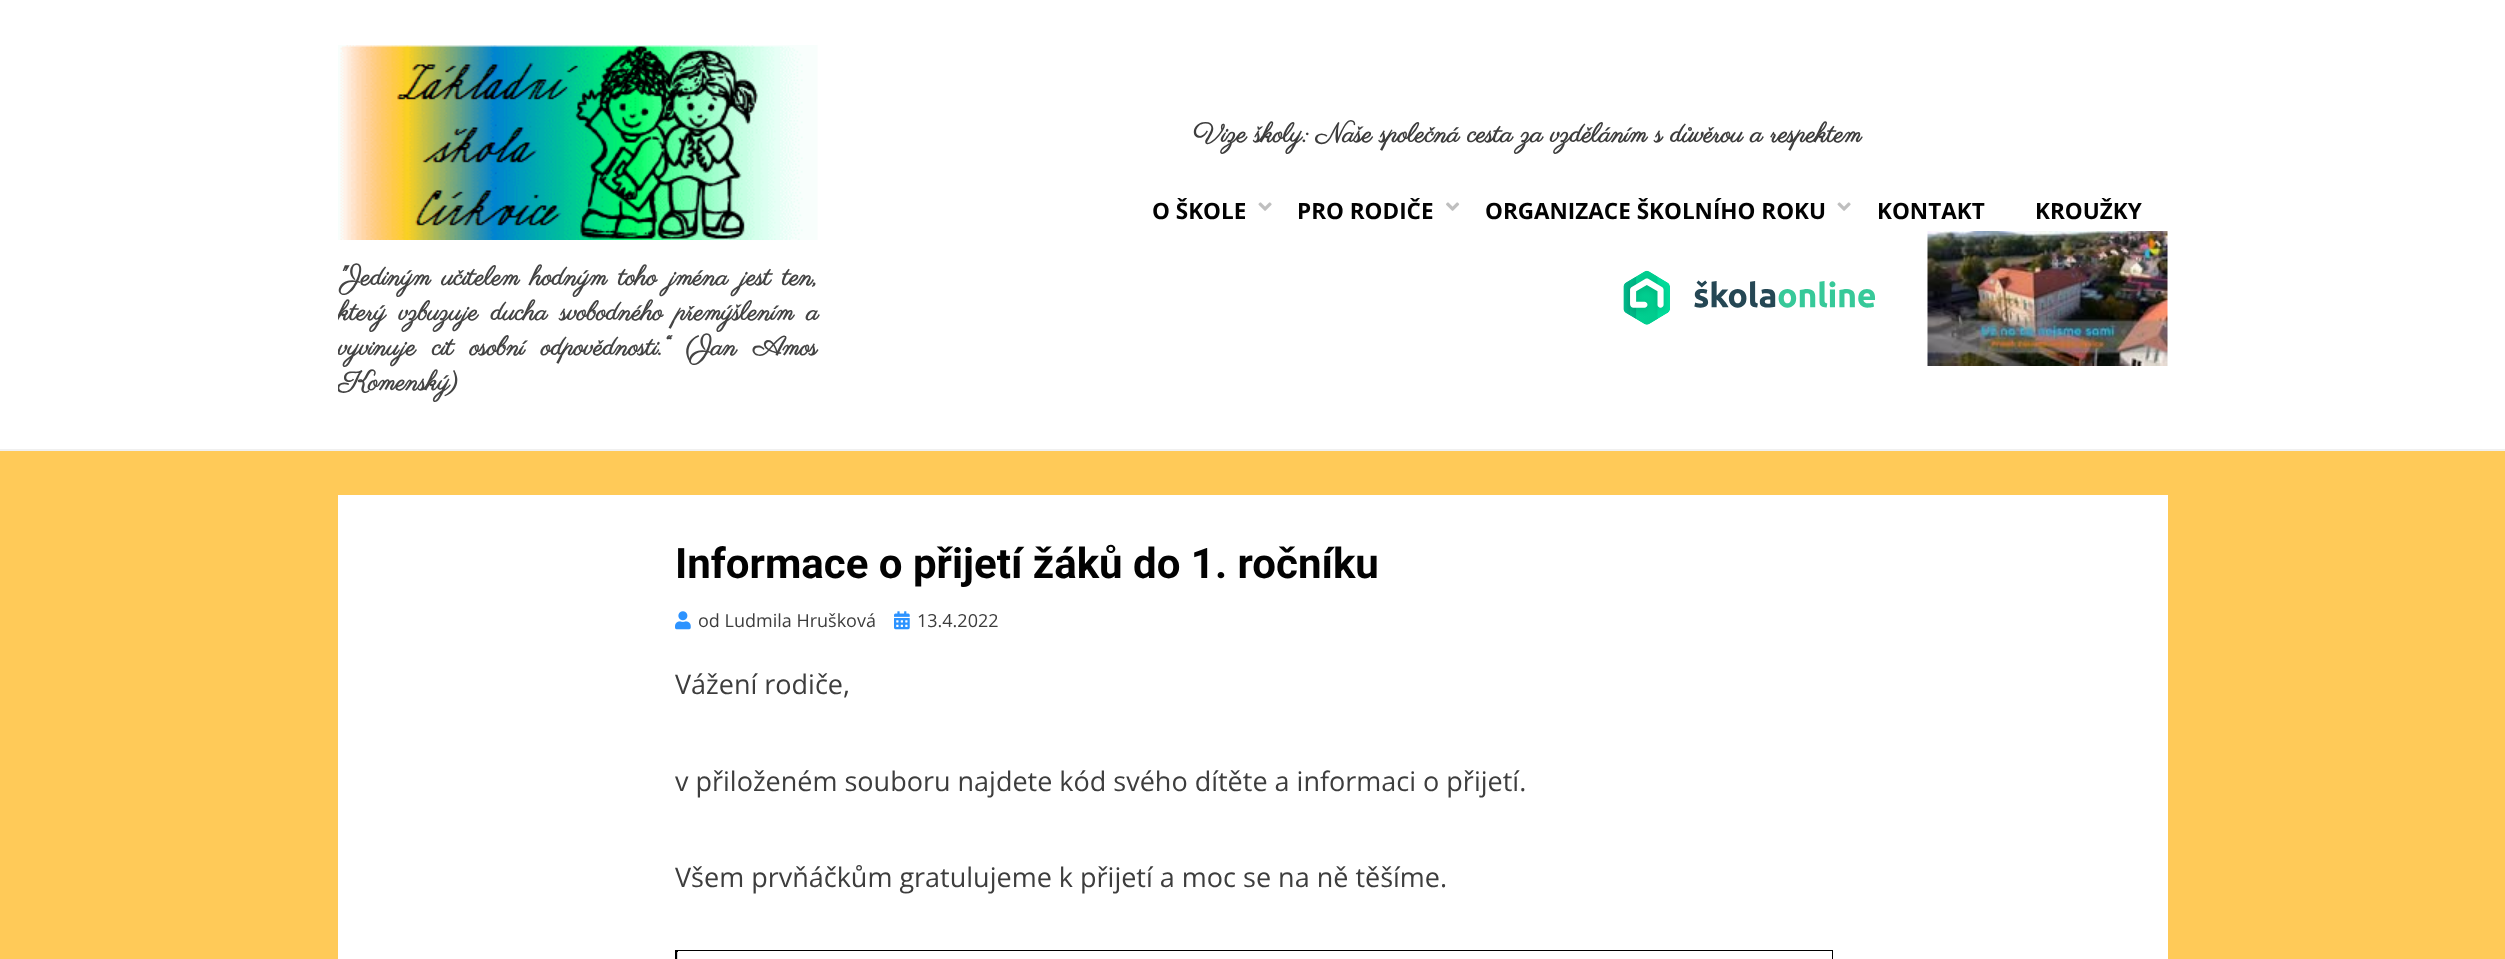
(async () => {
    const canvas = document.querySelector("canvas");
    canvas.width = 2505;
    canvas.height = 959;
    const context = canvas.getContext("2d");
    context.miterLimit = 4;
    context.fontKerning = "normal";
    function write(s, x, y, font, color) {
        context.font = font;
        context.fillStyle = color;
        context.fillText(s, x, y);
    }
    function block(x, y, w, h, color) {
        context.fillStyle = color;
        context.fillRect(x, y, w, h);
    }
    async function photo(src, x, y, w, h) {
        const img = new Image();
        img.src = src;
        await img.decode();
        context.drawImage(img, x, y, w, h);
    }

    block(0, 0, 2505, 959, "rgb(255, 202, 88)");
    block(0, 0, 2505, 449, "rgb(255, 255, 255)");
    block(0, 449, 2505, 2, "rgb(240, 240, 240)");
    write("Vize školy: Naše společná cesta za vzděláním s důvěrou a respektem", 1193, 142, "bold 27px Parisienne", "rgb(61, 61, 61)");
    write("O ŠKOLE", 1152, 219, "bold 22.5px Open Sans", "rgb(2, 2, 2)");
    await photo("media/1.png", 1258, 202, 14, 9);
    write("PRO RODIČE", 1297, 219, "bold 22.5px Open Sans", "rgb(2, 2, 2)");
    await photo("media/2.png", 1446, 202, 14, 9);
    write("ORGANIZACE ŠKOLNÍHO ROKU", 1485, 219, "bold 22.5px Open Sans", "rgb(2, 2, 2)");
    await photo("media/1.png", 1837, 202, 14, 9);
    write("KONTAKT", 1877, 219, "bold 22.5px Open Sans", "rgb(2, 2, 2)");
    write("KROUŽKY", 2035, 219, "bold 22.5px Open Sans", "rgb(2, 2, 2)");
    await photo("media/3.png", 1623, 270, 253, 55);
    await photo("media/4.png", 1927, 231, 241, 135);
    await photo("media/5.png", 338, 45, 480, 195);
    context.wordSpacing = "3.5px";
    write("\"Jediným učitelem hodným toho jména jest ten,", 338, 285, "bold 27px Parisienne", "rgb(68, 68, 68)");
    context.save();
    context.beginPath();
    context.rect(338, 263, 549, 141);
    context.clip();
    context.wordSpacing = "5px";
    write("který vzbuzuje ducha svobodného přemýšlením a", 338, 320, "bold 27px Parisienne", "rgb(68, 68, 68)");
    context.wordSpacing = "8.5px";
    write("vyvinuje cit osobní odpovědnosti.“", 338, 355, "bold 27px Parisienne", "rgb(68, 68, 68)");
    context.restore();
    context.wordSpacing = "8.5px";
    write("(Jan Amos", 685, 355, "bold 27px Parisienne", "rgb(68, 68, 68)");
    context.save();
    context.beginPath();
    context.rect(338, 263, 549, 141);
    context.clip();
    context.wordSpacing = "0px";
    write("Komenský)", 338, 390, "bold 27px Parisienne", "rgb(68, 68, 68)");
    context.restore();
    block(338, 495, 1830, 464, "rgb(255, 255, 255)");
    context.wordSpacing = "0px";
    write("Informace o přijetí žáků do 1. ročníku", 675, 578, "bold 42px Roboto", "rgb(2, 2, 2)");
    await photo("media/6.png", 675, 611, 16, 19);
    write("od Ludmila Hrušková", 698, 627, "18px Open Sans", "rgb(61, 61, 61)");
    await photo("media/7.png", 894, 611, 16, 19);
    write("13.4.2022", 917, 627, "18px Open Sans", "rgb(61, 61, 61)");
    write("Vážení rodiče,", 675, 694, "27px Open Sans", "rgb(61, 61, 61)");
    write("v přiloženém souboru najdete kód svého dítěte a informaci o přijetí.", 675, 791, "27px Open Sans", "rgb(61, 61, 61)");
    write("Všem prvňáčkům gratulujeme k přijetí a moc se na ně těšíme.", 675, 887, "27px Open Sans", "rgb(61, 61, 61)");
    block(677, 952, 1, 7, "rgb(211, 211, 211)");
    context.strokeStyle = "rgb(0, 0, 0)";
    context.lineWidth = 2;
    context.strokeRect(676, 951, 1156, 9);
    block(678, 951, 1154, 8, "rgb(255, 255, 255)");
})();
